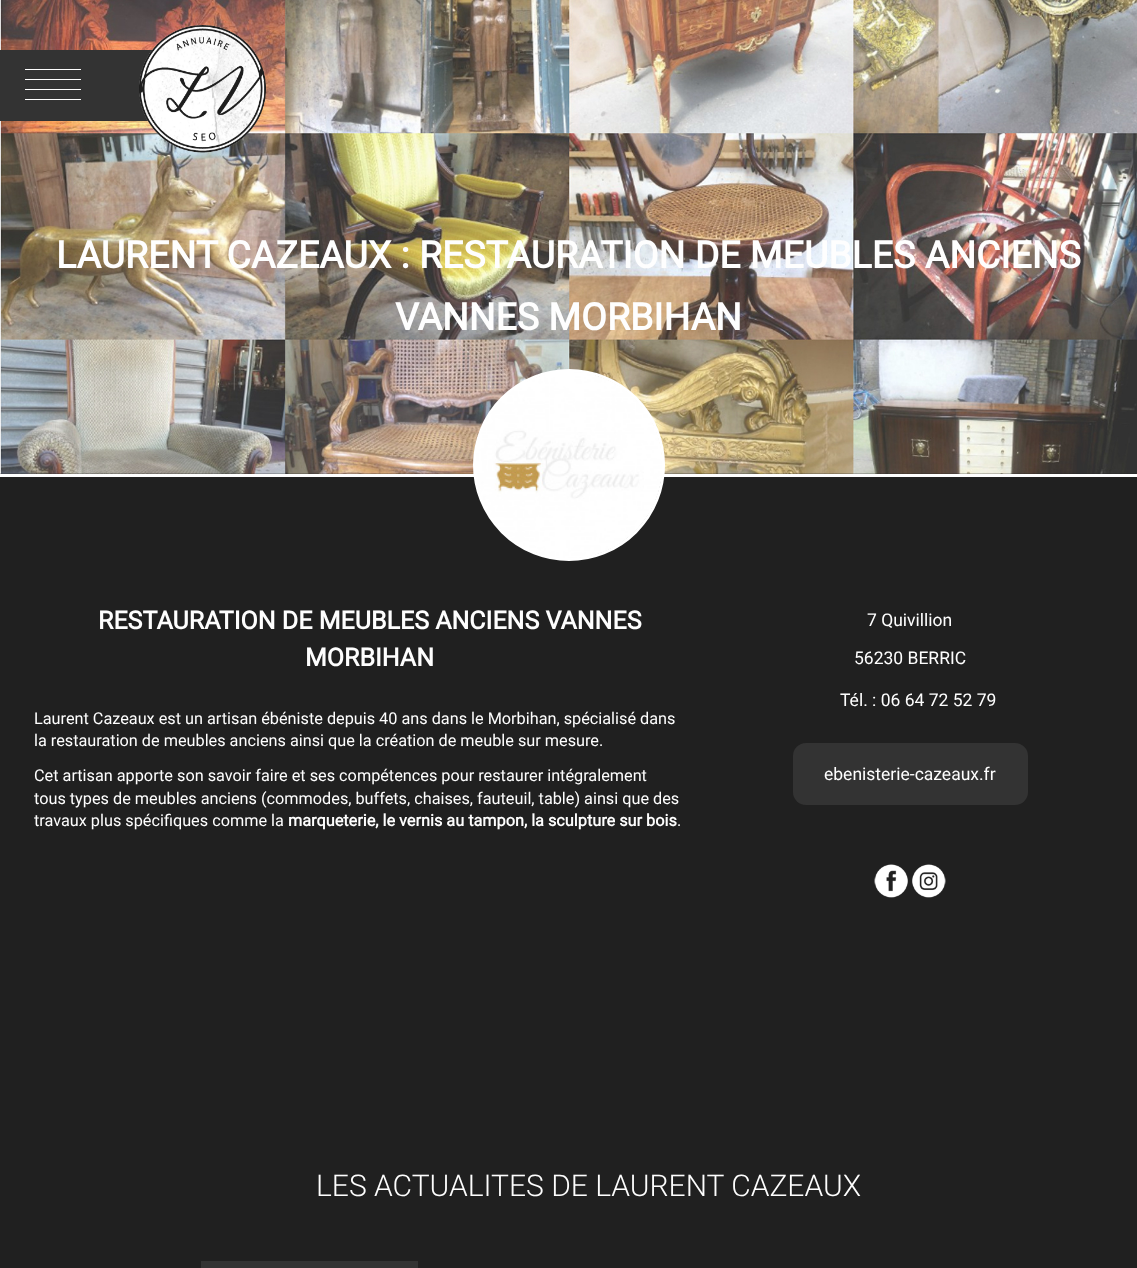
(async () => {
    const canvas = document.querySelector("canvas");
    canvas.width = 1137;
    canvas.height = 1268;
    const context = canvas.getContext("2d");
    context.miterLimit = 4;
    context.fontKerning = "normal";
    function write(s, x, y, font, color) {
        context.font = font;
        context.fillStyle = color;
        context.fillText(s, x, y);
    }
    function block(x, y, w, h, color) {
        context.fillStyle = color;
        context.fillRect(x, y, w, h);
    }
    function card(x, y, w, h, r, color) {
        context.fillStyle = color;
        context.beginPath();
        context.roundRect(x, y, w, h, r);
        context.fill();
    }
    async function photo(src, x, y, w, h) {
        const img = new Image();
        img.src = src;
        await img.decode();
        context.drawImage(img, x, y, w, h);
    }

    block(0, 0, 1137, 1268, "rgb(32, 32, 32)");
    await photo("media/2.png", 0, 0, 1137, 474);
    block(0, 50, 153, 71, "rgb(51, 51, 51)");
    block(25, 69, 56, 1, "rgb(255, 255, 255)");
    block(25, 79, 56, 1, "rgb(255, 255, 255)");
    block(25, 89, 56, 1, "rgb(255, 255, 255)");
    block(25, 99, 56, 1, "rgb(255, 255, 255)");
    await photo("media/1.png", 139, 25, 127, 128);
    block(0, 474, 1137, 3, "rgb(255, 255, 255)");
    write("LAURENT CAZEAUX : RESTAURATION DE MEUBLES ANCIENS", 56, 268, "bold 37.5px Roboto", "rgb(254, 254, 254)");
    write("VANNES MORBIHAN", 395, 330, "bold 37.5px Roboto", "rgb(254, 254, 254)");
    context.beginPath();
    context.arc(569, 465, 94.5, 0, Math.PI * 2);
    context.strokeStyle = "rgb(255, 255, 255)";
    context.lineWidth = 3;
    context.stroke();
    await photo("media/3.png", 476, 372, 186, 186);
    write("RESTAURATION DE MEUBLES ANCIENS VANNES", 98, 629, "bold 25px Roboto", "rgb(254, 254, 254)");
    write("MORBIHAN", 305, 666, "bold 25px Roboto", "rgb(254, 254, 254)");
    write("7 Quivillion", 867, 626, "17.5px Roboto", "rgb(254, 254, 254)");
    write("56230 BERRIC", 854, 664, "17.5px Roboto", "rgb(254, 254, 254)");
    write("Tél. : 06 64 72 52 79", 840, 706, "17.5px Roboto", "rgb(254, 254, 254)");
    card(793, 743, 235, 62, 13, "rgb(51, 51, 51)");
    write("ebenisterie-cazeaux.fr", 824, 780, "17.5px Roboto", "rgb(254, 254, 254)");
    await photo("media/4.png", 874, 864, 34, 34);
    await photo("media/5.png", 912, 864, 34, 34);
    write("Laurent Cazeaux est un artisan ébéniste depuis 40 ans dans le Morbihan, spécialisé dans", 34, 724, "16.25px Roboto", "rgb(254, 254, 254)");
    write("la restauration de meubles anciens ainsi que la création de meuble sur mesure.", 34, 746, "16.25px Roboto", "rgb(254, 254, 254)");
    write("Cet artisan apporte son savoir faire et ses compétences pour restaurer intégralement", 34, 781, "16.25px Roboto", "rgb(254, 254, 254)");
    write("tous types de meubles anciens (commodes, buffets, chaises, fauteuil, table) ainsi que des", 34, 804, "16.25px Roboto", "rgb(254, 254, 254)");
    write("travaux plus spécifiques comme la", 34, 826, "16.25px Roboto", "rgb(254, 254, 254)");
    write("marqueterie, le vernis au tampon, la sculpture sur bois", 288, 826, "bold 16.25px Roboto", "rgb(254, 254, 254)");
    write(".", 677, 826, "16.25px Roboto", "rgb(254, 254, 254)");
    write("LES ACTUALITES DE LAURENT CAZEAUX", 316, 1196, "300 30px Roboto", "rgb(254, 254, 254)");
    block(201, 1261, 217, 7, "rgb(51, 51, 51)");
})();
